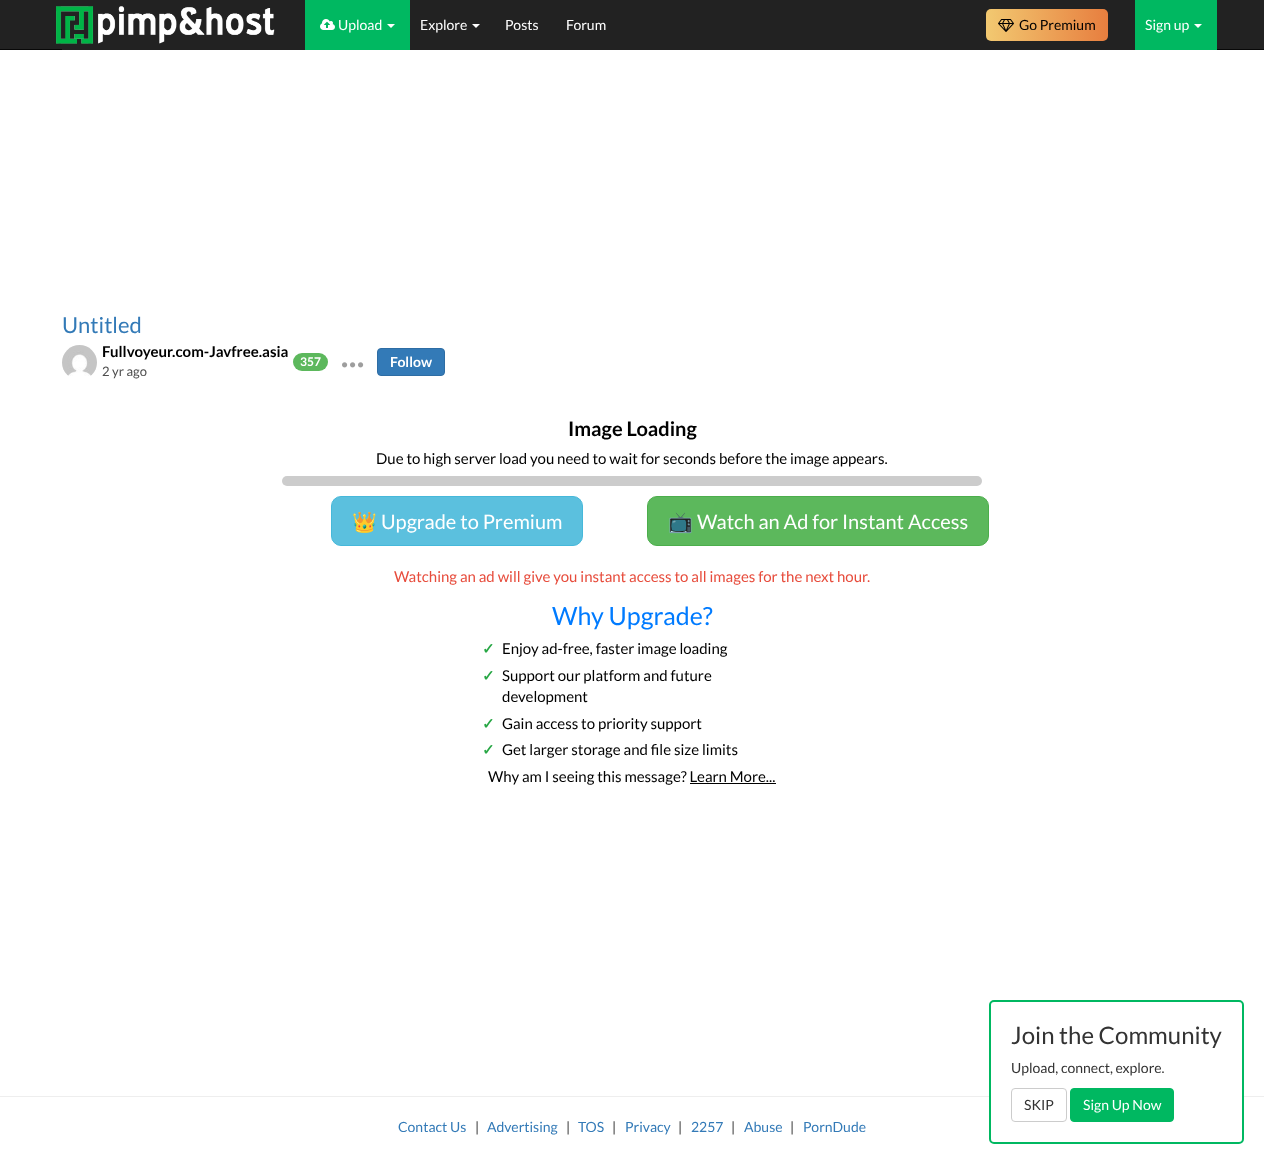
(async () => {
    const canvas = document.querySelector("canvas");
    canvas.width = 1264;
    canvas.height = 1164;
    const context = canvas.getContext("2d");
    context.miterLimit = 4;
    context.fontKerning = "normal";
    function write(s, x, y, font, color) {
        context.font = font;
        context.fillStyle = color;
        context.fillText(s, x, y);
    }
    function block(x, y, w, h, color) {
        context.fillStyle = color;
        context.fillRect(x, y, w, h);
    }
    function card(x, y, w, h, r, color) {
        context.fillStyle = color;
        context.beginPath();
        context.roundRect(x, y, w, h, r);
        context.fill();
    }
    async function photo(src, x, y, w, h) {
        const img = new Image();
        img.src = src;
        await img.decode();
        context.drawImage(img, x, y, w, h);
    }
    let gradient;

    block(0, 0, 1264, 1164, "rgb(255, 255, 255)");
    block(0, 0, 1264, 49, "rgb(34, 34, 34)");
    block(0, 49, 1264, 1, "rgb(8, 8, 8)");
    await photo("media/1.png", 56, 6, 219, 38);
    block(62, 49, 1073, 1, "rgb(34, 34, 34)");
    block(305, 0, 105, 50, "rgb(0, 184, 97)");
    await photo("media/2.png", 320, 19, 15, 11);
    write("Upload", 338, 30, "14px Lato", "rgb(255, 255, 255)");
    context.beginPath();
    context.moveTo(387, 24);
    context.lineTo(395, 24);
    context.lineTo(391, 28);
    context.closePath();
    context.fill();
    write("Explore", 420, 30, "14px Lato", "rgb(255, 255, 255)");
    context.beginPath();
    context.moveTo(472, 24);
    context.lineTo(480, 24);
    context.lineTo(476, 28);
    context.closePath();
    context.fill();
    write("Posts", 505, 30, "14px Lato", "rgb(255, 255, 255)");
    write("Forum", 566, 30, "14px Lato", "rgb(255, 255, 255)");
    gradient = context.createLinearGradient(986, 25, 1108, 25);
    gradient.addColorStop(0, "rgb(242, 201, 113)");
    gradient.addColorStop(1, "rgb(231, 126, 63)");
    context.fillStyle = gradient;
    context.beginPath();
    context.roundRect(986, 9, 122, 32, 5);
    context.fill();
    await photo("media/3.png", 998, 19, 16, 13);
    write("Go Premium", 1019, 30, "14px Lato", "rgb(0, 0, 0)");
    block(1135, 0, 82, 50, "rgb(0, 184, 97)");
    write("Sign up", 1145, 30, "14px Lato", "rgb(255, 255, 255)");
    context.beginPath();
    context.moveTo(1194, 24);
    context.lineTo(1202, 24);
    context.lineTo(1198, 28);
    context.closePath();
    context.fill();
    write("Untitled", 62, 333, "22px Lato", "rgb(51, 122, 183)");
    await photo("media/4.png", 62, 345, 35, 31);
    write("Fullvoyeur.com-Javfree.asia", 102, 357, "bold 15px Lato", "rgb(0, 0, 0)");
    card(293, 353, 35, 18, 9, "rgb(92, 184, 92)");
    write("357", 300, 366, "bold 12px Lato", "rgb(255, 255, 255)");
    await photo("media/5.png", 342, 362, 6, 6);
    await photo("media/5.png", 350, 362, 6, 6);
    await photo("media/5.png", 358, 362, 6, 6);
    context.fillStyle = "rgb(51, 122, 183)";
    context.beginPath();
    context.roundRect(377.5, 348.5, 67, 27, 3.5);
    context.fill();
    context.strokeStyle = "rgb(46, 109, 164)";
    context.stroke();
    write("Follow", 390, 367, "bold 14px Lato", "rgb(255, 255, 255)");
    write("2 yr ago", 102, 376, "13px Lato", "rgb(78, 78, 78)");
    write("Image Loading", 568, 436, "bold 20px Lato", "rgb(0, 0, 0)");
    write("Due to high server load you need to wait for seconds before the image appears.", 376, 464, "15px Lato", "rgb(0, 0, 0)");
    card(282, 476, 700, 10, 5, "rgb(204, 204, 204)");
    context.fillStyle = "rgb(91, 192, 222)";
    context.beginPath();
    context.roundRect(331.5, 496.5, 251, 49, 9.5);
    context.fill();
    context.strokeStyle = "rgb(70, 184, 218)";
    context.stroke();
    write("👑", 352, 529, "20px Noto Color Emoji", "rgb(255, 255, 255)");
    write("Upgrade to Premium", 381, 529, "20px Lato", "rgb(255, 255, 255)");
    context.fillStyle = "rgb(92, 184, 92)";
    context.beginPath();
    context.roundRect(647.5, 496.5, 341, 49, 9.5);
    context.fill();
    context.strokeStyle = "rgb(76, 174, 76)";
    context.stroke();
    write("📺", 668, 529, "20px Noto Color Emoji", "rgb(255, 255, 255)");
    write("Watch an Ad for Instant Access", 697, 529, "20px Lato", "rgb(255, 255, 255)");
    write("Watching an ad will give you instant access to all images for the next hour.", 394, 582, "15px Lato", "rgb(231, 76, 60)");
    write("Why Upgrade?", 552, 625, "25px Lato", "rgb(0, 123, 255)");
    write("✓", 482, 654, "bold 15px DejaVu Sans", "rgb(40, 167, 69)");
    write("Enjoy ad-free, faster image loading", 502, 654, "15px Lato", "rgb(0, 0, 0)");
    write("✓", 482, 681, "bold 15px DejaVu Sans", "rgb(40, 167, 69)");
    write("Support our platform and future", 502, 681, "15px Lato", "rgb(0, 0, 0)");
    write("development", 502, 702, "15px Lato", "rgb(0, 0, 0)");
    write("✓", 482, 729, "bold 15px DejaVu Sans", "rgb(40, 167, 69)");
    write("Gain access to priority support", 502, 729, "15px Lato", "rgb(0, 0, 0)");
    write("✓", 482, 755, "bold 15px DejaVu Sans", "rgb(40, 167, 69)");
    write("Get larger storage and file size limits", 502, 755, "15px Lato", "rgb(0, 0, 0)");
    write("Why am I seeing this message? Learn More...", 488, 782, "15px Lato", "rgb(0, 0, 0)");
    block(690, 783, 86, 1, "rgb(0, 0, 0)");
    block(0, 1096, 1264, 1, "rgb(238, 238, 238)");
    context.fillStyle = "rgb(255, 255, 255)";
    context.beginPath();
    context.roundRect(990, 1001, 253, 142, 4);
    context.fill();
    context.strokeStyle = "rgb(0, 184, 97)";
    context.lineWidth = 2;
    context.stroke();
    write("Join the Community", 1011, 1044, "24px Lato", "rgb(51, 51, 51)");
    write("Upload, connect, explore.", 1011, 1073, "14px Lato", "rgb(51, 51, 51)");
    context.beginPath();
    context.roundRect(1011.5, 1088.5, 55, 33, 3.5);
    context.strokeStyle = "rgb(204, 204, 204)";
    context.lineWidth = 1;
    context.stroke();
    write("SKIP", 1024, 1110, "14px Lato", "rgb(51, 51, 51)");
    context.fillStyle = "rgb(0, 184, 97)";
    context.beginPath();
    context.roundRect(1070.5, 1088.5, 103, 33, 3.5);
    context.fill();
    context.strokeStyle = "rgb(0, 184, 97)";
    context.stroke();
    write("Sign Up Now", 1083, 1110, "14px Lato", "rgb(255, 255, 255)");
    write("Contact Us", 398, 1132, "14px Lato", "rgb(51, 122, 183)");
    write("|", 475, 1132, "14px Lato", "rgb(51, 51, 51)");
    write("Advertising", 487, 1132, "14px Lato", "rgb(51, 122, 183)");
    write("|", 566, 1132, "14px Lato", "rgb(51, 51, 51)");
    write("TOS", 578, 1132, "14px Lato", "rgb(51, 122, 183)");
    write("|", 612, 1132, "14px Lato", "rgb(51, 51, 51)");
    write("Privacy", 625, 1132, "14px Lato", "rgb(51, 122, 183)");
    write("|", 678, 1132, "14px Lato", "rgb(51, 51, 51)");
    write("2257", 691, 1132, "14px Lato", "rgb(51, 122, 183)");
    write("|", 731, 1132, "14px Lato", "rgb(51, 51, 51)");
    write("Abuse", 744, 1132, "14px Lato", "rgb(51, 122, 183)");
    write("|", 790, 1132, "14px Lato", "rgb(51, 51, 51)");
    write("PornDude", 803, 1132, "14px Lato", "rgb(51, 122, 183)");
})();
